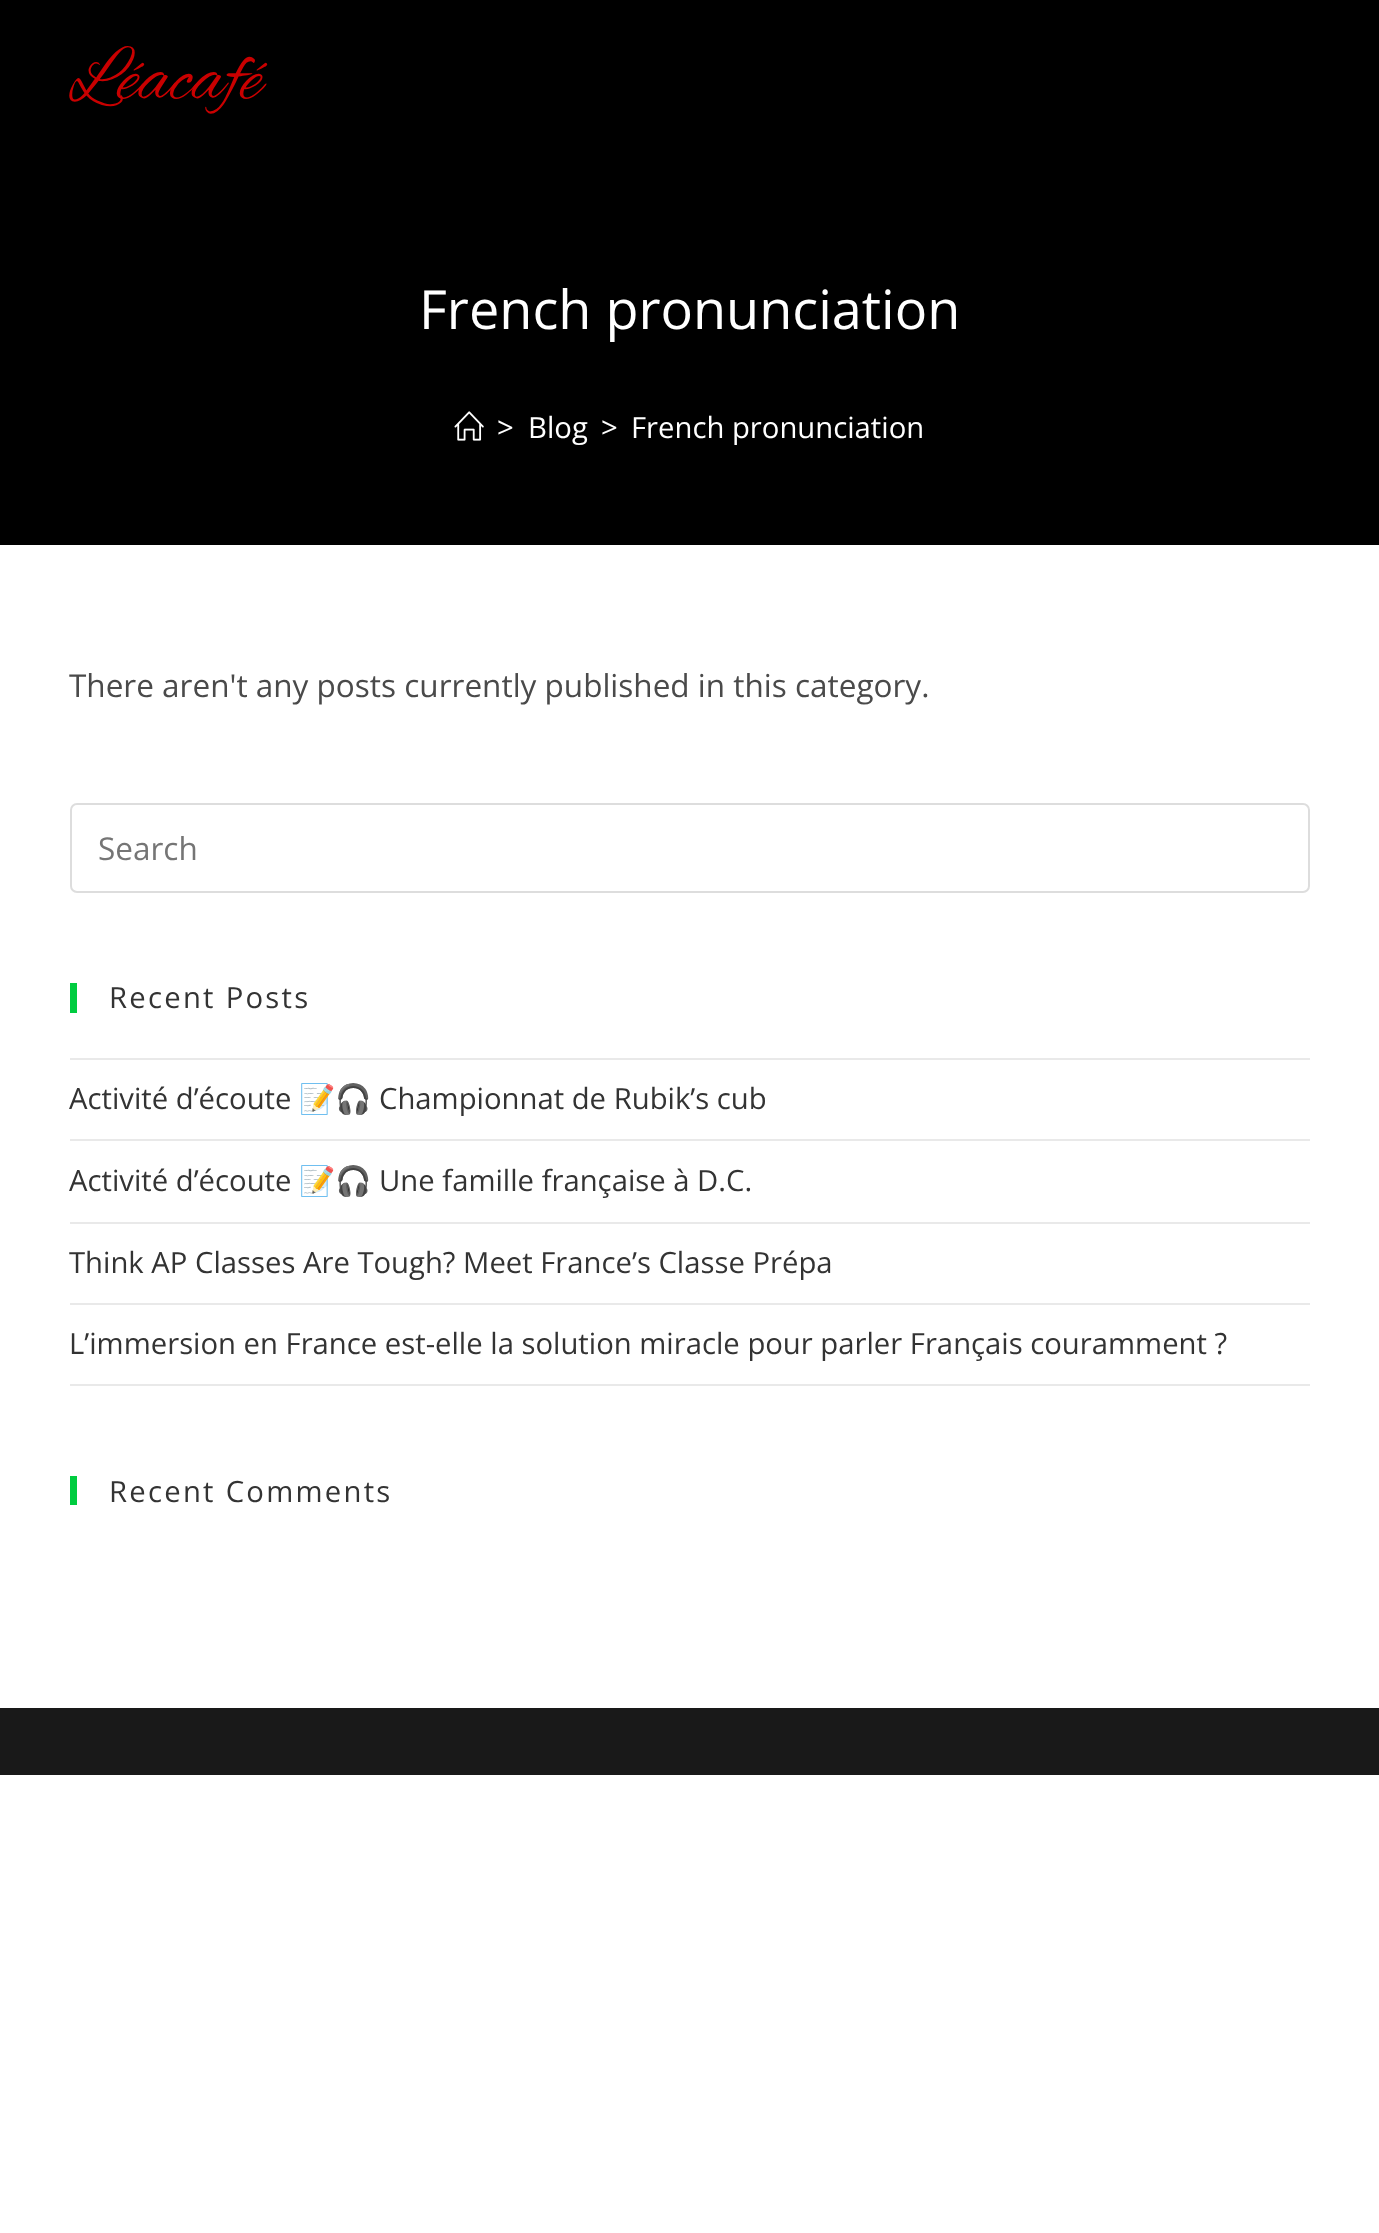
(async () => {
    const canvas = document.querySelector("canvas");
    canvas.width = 1379;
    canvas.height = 2233;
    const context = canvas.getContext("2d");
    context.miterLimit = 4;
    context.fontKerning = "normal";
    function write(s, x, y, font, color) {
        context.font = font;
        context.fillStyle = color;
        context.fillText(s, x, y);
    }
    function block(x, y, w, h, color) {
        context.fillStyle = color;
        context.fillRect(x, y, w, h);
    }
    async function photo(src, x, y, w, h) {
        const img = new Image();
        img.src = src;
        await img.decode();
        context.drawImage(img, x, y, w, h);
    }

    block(0, 0, 1379, 2233, "rgb(255, 255, 255)");
    block(0, 0, 1379, 545, "rgb(0, 0, 0)");
    write("Léacafé", 69, 98, "76.5px Alex Brush", "rgb(201, 0, 0)");
    write("French pronunciation", 419, 329, "54px Open Sans", "rgb(255, 255, 255)");
    await photo("media/1.png", 454, 411, 30, 30);
    write(">", 497, 438, "29.25px Open Sans", "rgb(255, 255, 255)");
    write("Blog", 528, 438, "29.25px Open Sans", "rgb(255, 255, 255)");
    write(">", 601, 438, "29.25px Open Sans", "rgb(255, 255, 255)");
    write("French pronunciation", 631, 438, "29.25px Open Sans", "rgb(255, 255, 255)");
    write("There aren't any posts currently published in this category.", 69, 697, "31.5px Open Sans", "rgb(74, 74, 74)");
    context.beginPath();
    context.roundRect(71, 804, 1238, 88, 6);
    context.strokeStyle = "rgb(221, 221, 221)";
    context.lineWidth = 2;
    context.stroke();
    write("Search", 98, 860, "31.5px Open Sans", "rgb(117, 117, 117)");
    block(70, 983, 7, 30, "rgb(0, 204, 64)");
    context.letterSpacing = "2.25px";
    write("Recent Posts", 109, 1008, "29.25px Open Sans", "rgb(51, 51, 51)");
    block(70, 1058, 1240, 2, "rgb(233, 233, 233)");
    block(70, 1139, 1240, 2, "rgb(233, 233, 233)");
    context.letterSpacing = "0px";
    write("Activité d’écoute", 69, 1109, "29.25px Open Sans", "rgb(51, 51, 51)");
    write("📝🎧", 299, 1109, "29.25px Noto Color Emoji", "rgb(51, 51, 51)");
    write("Championnat de Rubik’s cub", 379, 1109, "29.25px Open Sans", "rgb(51, 51, 51)");
    block(70, 1222, 1240, 2, "rgb(233, 233, 233)");
    write("Activité d’écoute", 69, 1191, "29.25px Open Sans", "rgb(51, 51, 51)");
    write("📝🎧", 299, 1191, "29.25px Noto Color Emoji", "rgb(51, 51, 51)");
    write("Une famille française à D.C.", 379, 1191, "29.25px Open Sans", "rgb(51, 51, 51)");
    block(70, 1303, 1240, 2, "rgb(233, 233, 233)");
    write("Think AP Classes Are Tough? Meet France’s Classe Prépa", 69, 1273, "29.25px Open Sans", "rgb(51, 51, 51)");
    block(70, 1384, 1240, 2, "rgb(233, 233, 233)");
    write("L’immersion en France est-elle la solution miracle pour parler Français couramment ?", 69, 1354, "29.25px Open Sans", "rgb(51, 51, 51)");
    block(70, 1476, 7, 29, "rgb(0, 204, 64)");
    context.letterSpacing = "2.25px";
    write("Recent Comments", 109, 1502, "29.25px Open Sans", "rgb(51, 51, 51)");
    block(0, 1708, 1379, 67, "rgb(25, 25, 25)");
})();
